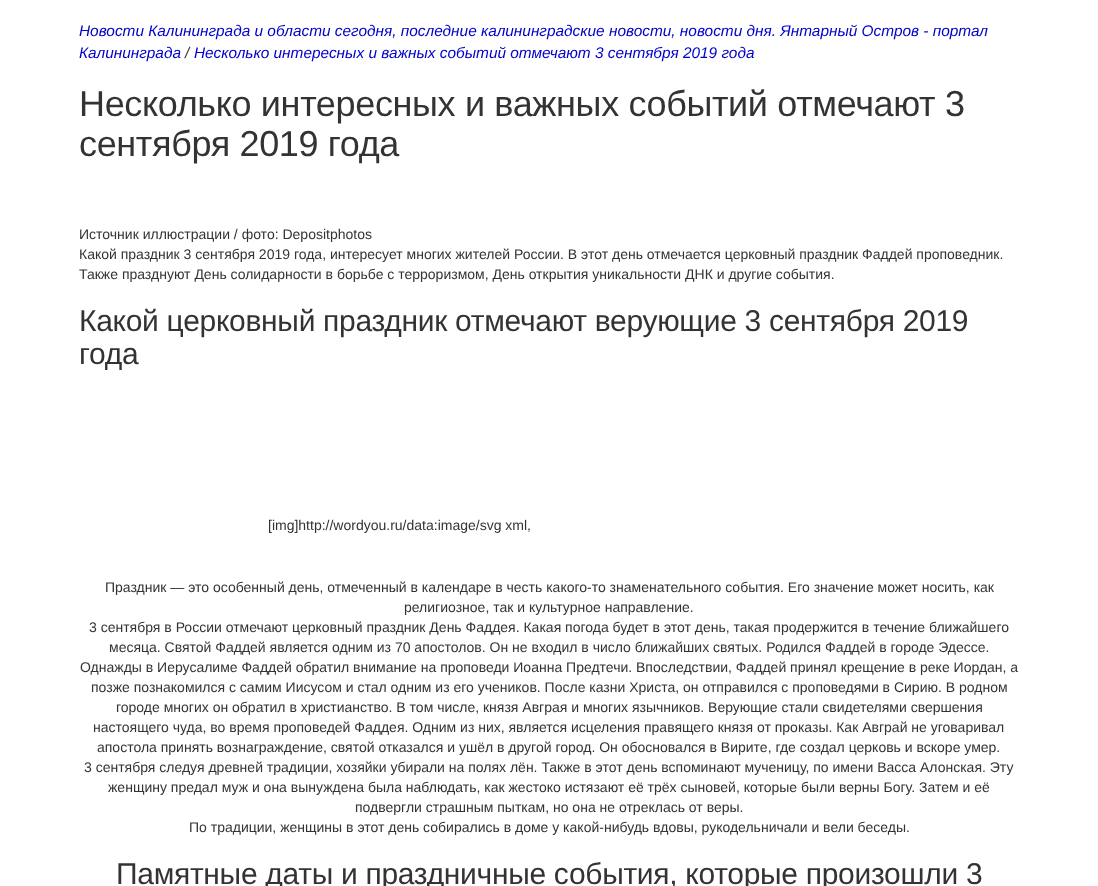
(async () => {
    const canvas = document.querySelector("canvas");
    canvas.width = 1098;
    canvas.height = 886;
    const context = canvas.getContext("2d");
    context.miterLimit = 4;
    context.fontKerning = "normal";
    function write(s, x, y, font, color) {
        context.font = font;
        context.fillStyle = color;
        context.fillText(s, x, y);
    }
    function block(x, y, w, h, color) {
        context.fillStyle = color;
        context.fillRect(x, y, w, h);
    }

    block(0, 0, 1098, 886, "rgb(255, 255, 255)");
    write("Новости Калининграда и области сегодня, последние калининградские новости, новости дня. Янтарный Остров - портал", 79, 36, "italic 15.4px Liberation Sans", "rgb(0, 0, 204)");
    write("Калининграда", 79, 58, "italic 15.4px Liberation Sans", "rgb(0, 0, 204)");
    write("/", 185, 58, "italic 15.4px Liberation Sans", "rgb(51, 51, 51)");
    write("Несколько интересных и важных событий отмечают 3 сентября 2019 года", 194, 58, "italic 15.4px Liberation Sans", "rgb(0, 0, 204)");
    context.letterSpacing = "-0.35px";
    write("Несколько интересных и важных событий отмечают 3", 79, 116, "36px Liberation Sans", "rgb(51, 51, 51)");
    write("сентября 2019 года", 79, 156, "36px Liberation Sans", "rgb(51, 51, 51)");
    context.letterSpacing = "0px";
    write("Источник иллюстрации / фото: Depositphotos", 79, 239, "14px Liberation Sans", "rgb(51, 51, 51)");
    write("Какой праздник 3 сентября 2019 года, интересует многих жителей России. В этот день отмечается церковный праздник Фаддей проповедник.", 79, 259, "14px Liberation Sans", "rgb(51, 51, 51)");
    write("Также празднуют День солидарности в борьбе с терроризмом, День открытия уникальности ДНК и другие события.", 79, 279, "14px Liberation Sans", "rgb(51, 51, 51)");
    context.letterSpacing = "-0.3px";
    write("Какой церковный праздник отмечают верующие 3 сентября 2019", 79, 331, "30px Liberation Sans", "rgb(51, 51, 51)");
    write("года", 79, 364, "30px Liberation Sans", "rgb(51, 51, 51)");
    context.letterSpacing = "0px";
    write("[img]http://wordyou.ru/data:image/svg xml,", 268, 530, "14px Liberation Sans", "rgb(51, 51, 51)");
    write("Праздник — это особенный день, отмеченный в календаре в честь какого-то знаменательного события. Его значение может носить, как", 105, 592, "14px Liberation Sans", "rgb(51, 51, 51)");
    write("религиозное, так и культурное направление.", 404, 612, "14px Liberation Sans", "rgb(51, 51, 51)");
    write("3 сентября в России отмечают церковный праздник День Фаддея. Какая погода будет в этот день, такая продержится в течение ближайшего", 89, 632, "14px Liberation Sans", "rgb(51, 51, 51)");
    write("месяца. Святой Фаддей является одним из 70 апостолов. Он не входил в число ближайших святых. Родился Фаддей в городе Эдессе.", 109, 652, "14px Liberation Sans", "rgb(51, 51, 51)");
    write("Однажды в Иерусалиме Фаддей обратил внимание на проповеди Иоанна Предтечи. Впоследствии, Фаддей принял крещение в реке Иордан, а", 80, 672, "14px Liberation Sans", "rgb(51, 51, 51)");
    write("позже познакомился с самим Иисусом и стал одним из его учеников. После казни Христа, он отправился с проповедями в Сирию. В родном", 91, 692, "14px Liberation Sans", "rgb(51, 51, 51)");
    write("городе многих он обратил в христианство. В том числе, князя Авграя и многих язычников. Верующие стали свидетелями свершения", 116, 712, "14px Liberation Sans", "rgb(51, 51, 51)");
    write("настоящего чуда, во время проповедей Фаддея. Одним из них, является исцеления правящего князя от проказы. Как Авграй не уговаривал", 93, 732, "14px Liberation Sans", "rgb(51, 51, 51)");
    write("апостола принять вознаграждение, святой отказался и ушёл в другой город. Он обосновался в Вирите, где создал церковь и вскоре умер.", 97, 752, "14px Liberation Sans", "rgb(51, 51, 51)");
    write("3 сентября следуя древней традиции, хозяйки убирали на полях лён. Также в этот день вспоминают мученицу, по имени Васса Алонская. Эту", 84, 772, "14px Liberation Sans", "rgb(51, 51, 51)");
    write("женщину предал муж и она вынуждена была наблюдать, как жестоко истязают её трёх сыновей, которые были верны Богу. Затем и её", 108, 792, "14px Liberation Sans", "rgb(51, 51, 51)");
    write("подвергли страшным пыткам, но она не отреклась от веры.", 355, 812, "14px Liberation Sans", "rgb(51, 51, 51)");
    write("По традиции, женщины в этот день собирались в доме у какой-нибудь вдовы, рукодельничали и вели беседы.", 189, 832, "14px Liberation Sans", "rgb(51, 51, 51)");
    context.letterSpacing = "-0.3px";
    write("Памятные даты и праздничные события, которые произошли 3", 116, 884, "30px Liberation Sans", "rgb(51, 51, 51)");
})();
